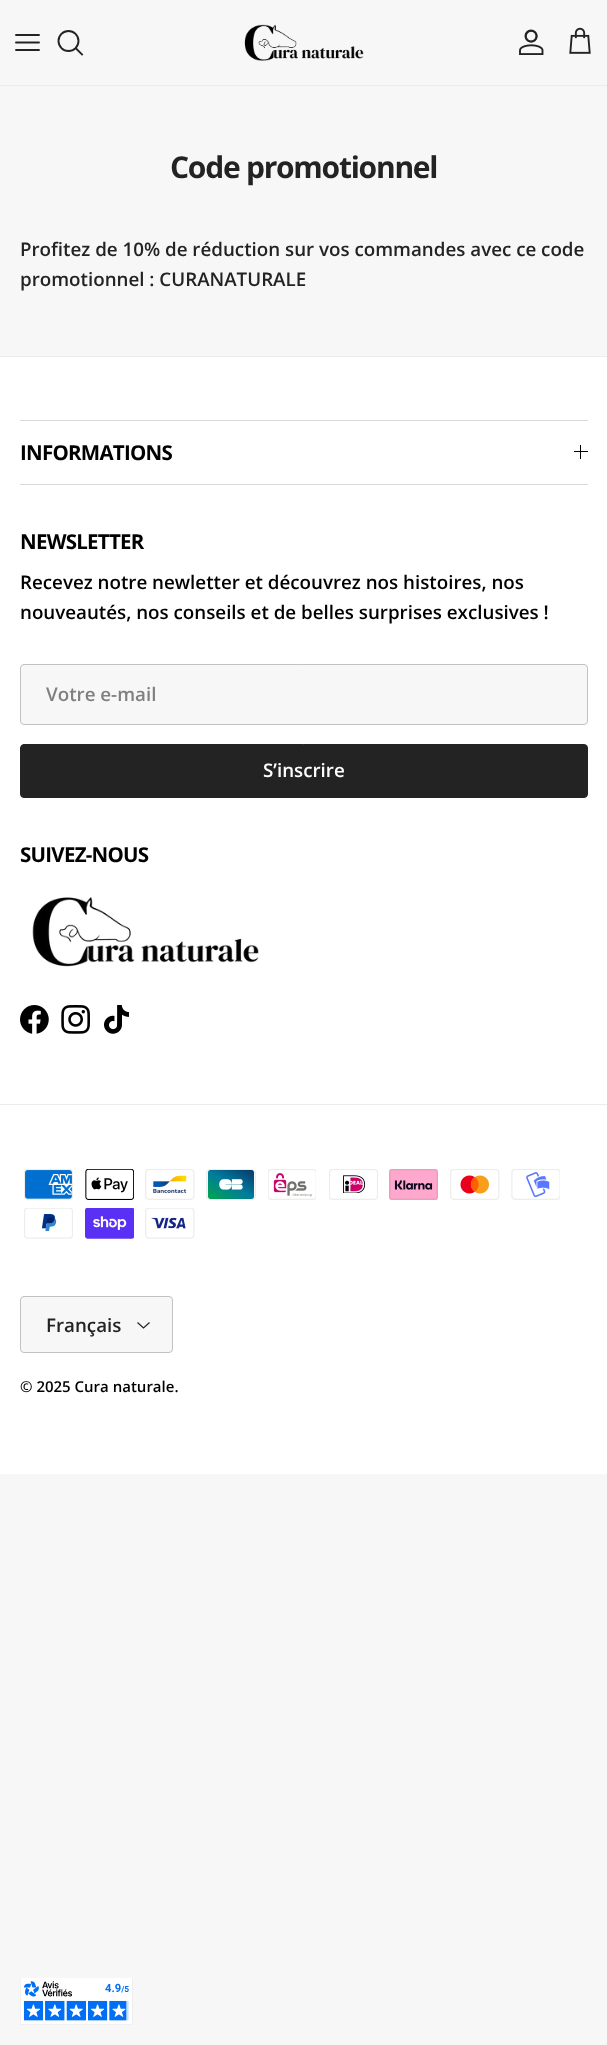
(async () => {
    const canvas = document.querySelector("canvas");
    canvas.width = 607;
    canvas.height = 2045;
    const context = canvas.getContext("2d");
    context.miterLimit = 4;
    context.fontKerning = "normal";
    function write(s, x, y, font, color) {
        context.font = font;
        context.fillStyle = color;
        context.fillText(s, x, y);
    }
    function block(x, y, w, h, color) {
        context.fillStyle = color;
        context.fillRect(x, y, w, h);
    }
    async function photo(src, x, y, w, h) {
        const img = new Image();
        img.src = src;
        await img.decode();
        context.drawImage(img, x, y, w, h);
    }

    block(0, 0, 607, 2045, "rgb(247, 247, 247)");
    block(0, 85, 607, 1, "rgb(236, 236, 236)");
    context.beginPath();
    context.moveTo(16, 42.5);
    context.lineTo(39, 42.5);
    context.moveTo(16, 35);
    context.lineTo(39, 35);
    context.moveTo(16, 50);
    context.lineTo(39, 50);
    context.strokeStyle = "rgb(35, 35, 35)";
    context.lineWidth = 1.9;
    context.lineCap = "round";
    context.lineJoin = "round";
    context.stroke();
    context.beginPath();
    context.arc(68.5, 41, 10, 0, Math.PI * 2);
    context.stroke();
    context.beginPath();
    context.moveTo(76, 48.5);
    context.lineTo(82, 54.5);
    context.lineCap = "square";
    context.lineJoin = "miter";
    context.stroke();
    await photo("media/1.png", 244, 24, 120, 37);
    await photo("media/2.png", 519, 29, 25, 26);
    await photo("media/3.png", 569, 27, 22, 27);
    context.letterSpacing = "-1.25px";
    write("Code promotionnel", 170, 178, "bold 30px Open Sans", "rgb(35, 35, 35)");
    context.letterSpacing = "0px";
    write("Profitez de 10% de réduction sur vos commandes avec ce code", 20, 256, "600 18.75px Open Sans", "rgb(35, 35, 35)");
    write("promotionnel : CURANATURALE", 20, 286, "600 18.75px Open Sans", "rgb(35, 35, 35)");
    block(0, 357, 607, 1117, "rgb(255, 255, 255)");
    block(0, 356, 607, 1, "rgb(236, 236, 236)");
    block(20, 420, 568, 1, "rgb(217, 217, 217)");
    block(20, 484, 568, 1, "rgb(217, 217, 217)");
    context.letterSpacing = "-0.75px";
    write("INFORMATIONS", 20, 460, "bold 20.5px Open Sans", "rgb(0, 0, 0)");
    block(580, 445, 1, 14, "rgb(0, 0, 0)");
    block(574, 451, 14, 1, "rgb(0, 0, 0)");
    write("NEWSLETTER", 20, 549, "bold 20.5px Open Sans", "rgb(0, 0, 0)");
    context.letterSpacing = "0px";
    write("Recevez notre newletter et découvrez nos histoires, nos", 20, 589, "600 18.75px Open Sans", "rgb(0, 0, 0)");
    write("nouveautés, nos conseils et de belles surprises exclusives !", 20, 619, "600 18.75px Open Sans", "rgb(0, 0, 0)");
    context.fillStyle = "rgb(247, 247, 247)";
    context.beginPath();
    context.roundRect(20.5, 664.5, 567, 60, 3.5);
    context.fill();
    context.strokeStyle = "rgb(194, 194, 194)";
    context.lineWidth = 1;
    context.stroke();
    write("Votre e-mail", 46, 701, "600 18.75px Open Sans", "rgb(128, 128, 128)");
    context.fillStyle = "rgb(35, 35, 35)";
    context.beginPath();
    context.roundRect(20.5, 744.5, 567, 53, 3.5);
    context.fill();
    context.strokeStyle = "rgb(35, 35, 35)";
    context.stroke();
    write("S’inscrire", 263, 777, "600 18.75px Open Sans", "rgb(255, 255, 255)");
    context.letterSpacing = "-0.75px";
    write("SUIVEZ-NOUS", 20, 862, "bold 20.5px Open Sans", "rgb(0, 0, 0)");
    await photo("media/4.png", 32, 897, 227, 70);
    await photo("media/5.png", 20, 1005, 29, 29);
    await photo("media/6.png", 61, 1005, 29, 29);
    await photo("media/7.png", 104, 1005, 25, 29);
    block(0, 1104, 607, 1, "rgb(236, 236, 236)");
    await photo("media/8.png", 24, 1169, 49, 31);
    await photo("media/9.png", 85, 1169, 49, 31);
    await photo("media/10.png", 145, 1169, 50, 31);
    await photo("media/11.png", 206, 1169, 50, 31);
    await photo("media/12.png", 268, 1169, 48, 31);
    await photo("media/13.png", 329, 1169, 49, 31);
    await photo("media/14.png", 389, 1169, 49, 31);
    await photo("media/15.png", 450, 1169, 50, 31);
    await photo("media/16.png", 511, 1169, 49, 31);
    await photo("media/17.png", 24, 1208, 49, 31);
    await photo("media/18.png", 85, 1208, 49, 31);
    await photo("media/19.png", 145, 1208, 50, 31);
    context.fillStyle = "rgb(247, 247, 247)";
    context.beginPath();
    context.roundRect(20.5, 1296.5, 152, 56, 3.5);
    context.fill();
    context.strokeStyle = "rgb(194, 194, 194)";
    context.stroke();
    context.letterSpacing = "0px";
    write("Français", 46, 1332, "600 18.75px Open Sans", "rgb(35, 35, 35)");
    context.beginPath();
    context.moveTo(149.5, 1322.5);
    context.lineTo(143.5, 1328);
    context.lineTo(137.5, 1322.5);
    context.strokeStyle = "rgb(35, 35, 35)";
    context.lineWidth = 1.2;
    context.lineCap = "butt";
    context.stroke();
    write("© 2025 Cura naturale.", 20, 1392, "600 15px Open Sans", "rgb(0, 0, 0)");
    await photo("media/20.png", 20, 1978, 113, 47);
})();
